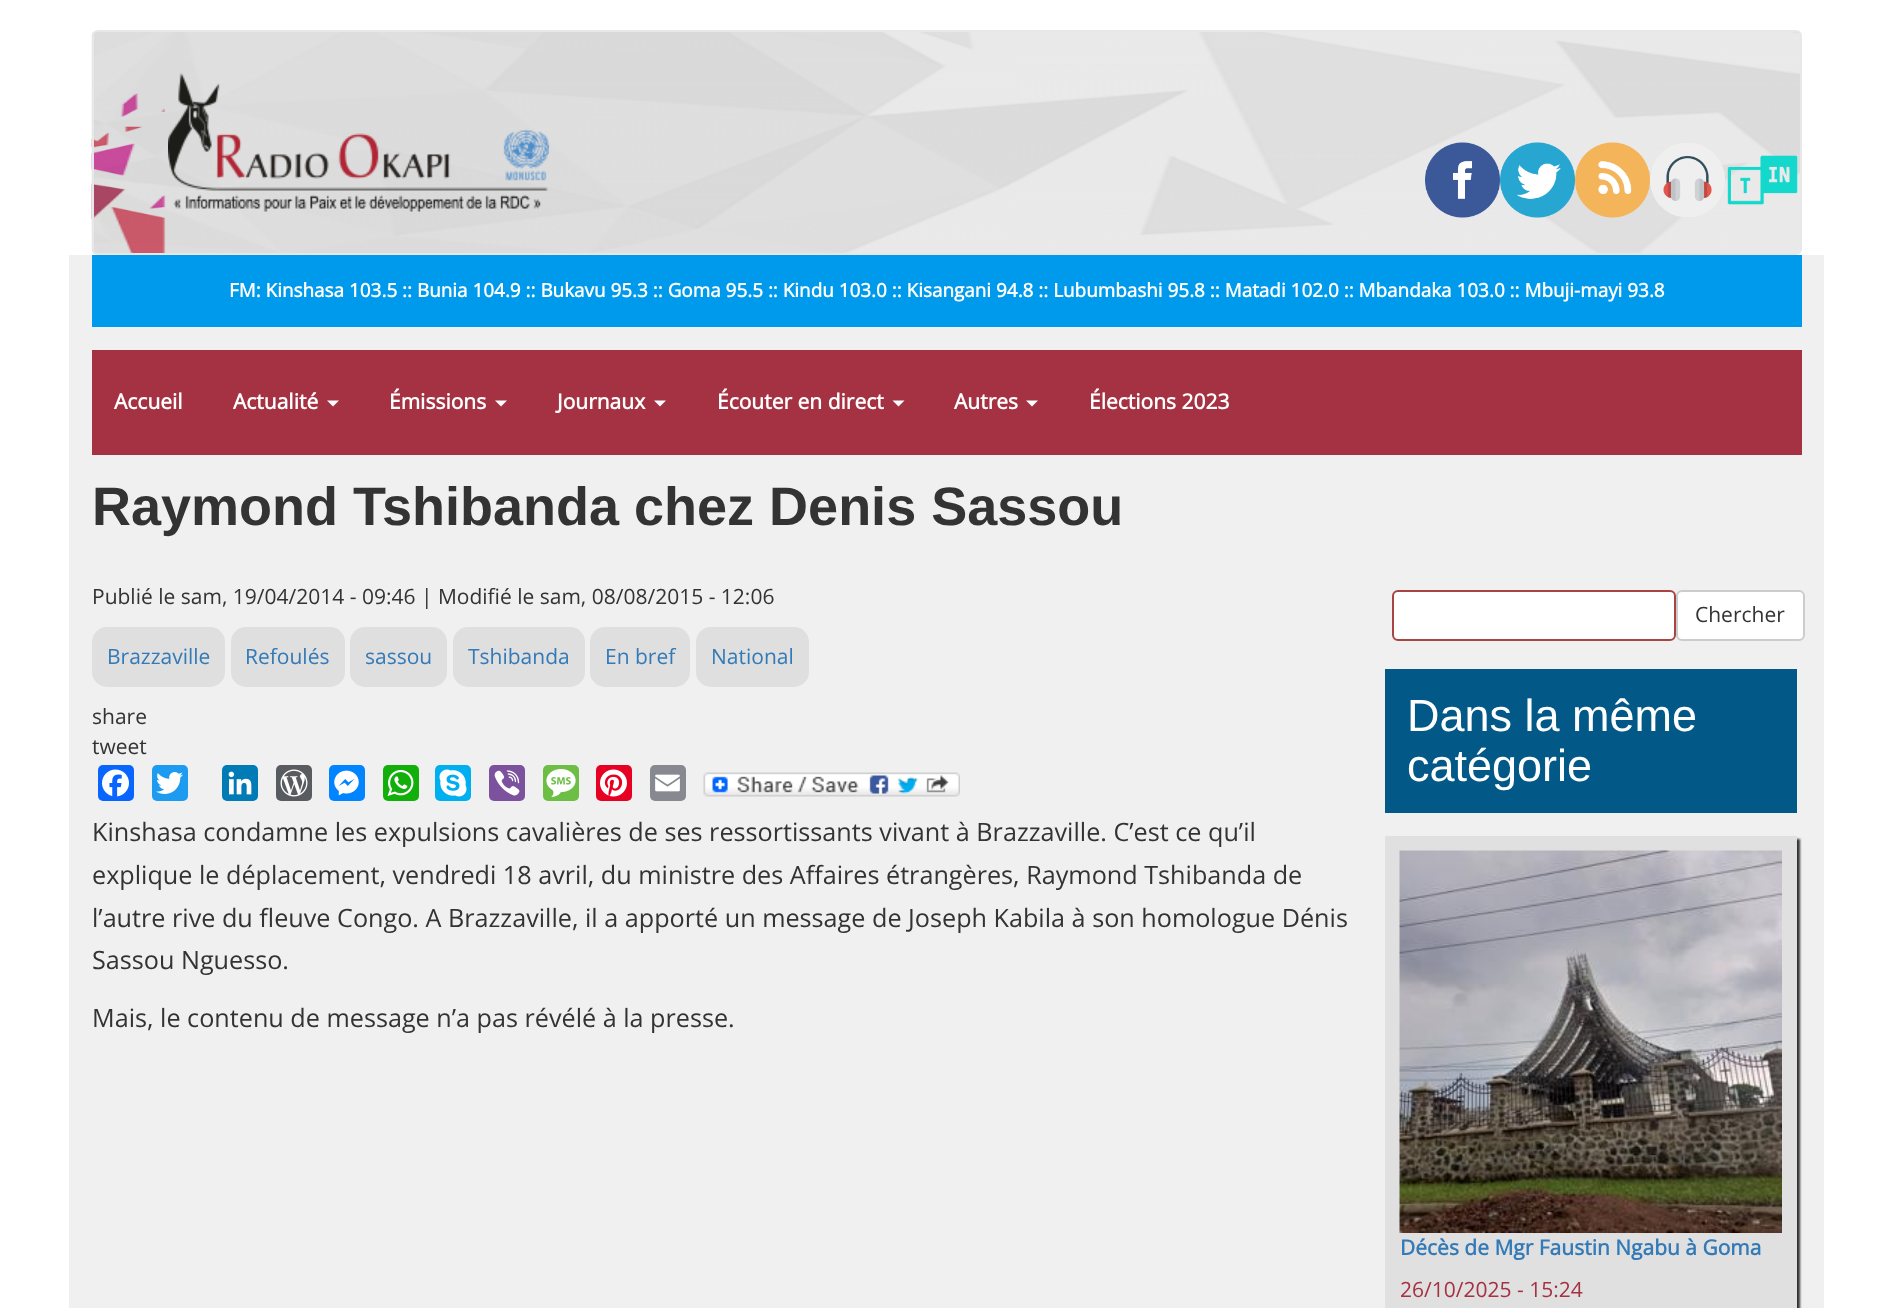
(async () => {
    const canvas = document.querySelector("canvas");
    canvas.width = 1893;
    canvas.height = 1308;
    const context = canvas.getContext("2d");
    context.miterLimit = 4;
    context.fontKerning = "normal";
    function write(s, x, y, font, color) {
        context.font = font;
        context.fillStyle = color;
        context.fillText(s, x, y);
    }
    function block(x, y, w, h, color) {
        context.fillStyle = color;
        context.fillRect(x, y, w, h);
    }
    function card(x, y, w, h, r, color) {
        context.fillStyle = color;
        context.beginPath();
        context.roundRect(x, y, w, h, r);
        context.fill();
    }
    async function photo(src, x, y, w, h) {
        const img = new Image();
        img.src = src;
        await img.decode();
        context.drawImage(img, x, y, w, h);
    }

    block(0, 0, 1893, 1308, "rgb(255, 255, 255)");
    await photo("media/1.png", 91, 31, 1711, 223);
    context.beginPath();
    context.roundRect(93, 31, 1708, 223, 5);
    context.strokeStyle = "rgb(231, 231, 231)";
    context.lineWidth = 2;
    context.stroke();
    await photo("media/2.png", 168, 73, 381, 139);
    await photo("media/3.png", 1425, 142, 75, 76);
    await photo("media/4.png", 1500, 142, 75, 76);
    await photo("media/5.png", 1575, 142, 75, 76);
    await photo("media/6.png", 1650, 143, 75, 74);
    await photo("media/7.png", 1727, 155, 71, 50);
    block(69, 255, 1755, 1053, "rgb(240, 240, 240)");
    block(92, 255, 1710, 72, "rgb(0, 154, 236)");
    write("FM: Kinshasa 103.5 :: Bunia 104.9 :: Bukavu 95.3 :: Goma 95.5 :: Kindu 103.0 :: Kisangani 94.8 :: Lubumbashi 95.8 :: Matadi 102.0 :: Mbandaka 103.0 :: Mbuji-mayi 93.8", 229, 297, "bold 18.9px Open Sans", "rgb(255, 255, 255)");
    block(92, 350, 1710, 105, "rgb(165, 50, 66)");
    write("Accueil", 114, 409, "bold 21px Open Sans", "rgb(255, 255, 255)");
    write("Actualité", 233, 409, "bold 21px Open Sans", "rgb(255, 255, 255)");
    context.beginPath();
    context.moveTo(327, 400.5);
    context.lineTo(339, 400.5);
    context.lineTo(333, 406.5);
    context.closePath();
    context.fill();
    write("Émissions", 389, 409, "bold 21px Open Sans", "rgb(255, 255, 255)");
    context.beginPath();
    context.moveTo(495, 400.5);
    context.lineTo(507, 400.5);
    context.lineTo(501, 406.5);
    context.closePath();
    context.fill();
    write("Journaux", 557, 409, "bold 21px Open Sans", "rgb(255, 255, 255)");
    context.beginPath();
    context.moveTo(654, 400.5);
    context.lineTo(666, 400.5);
    context.lineTo(660, 406.5);
    context.closePath();
    context.fill();
    write("Écouter en direct", 717, 409, "bold 21px Open Sans", "rgb(255, 255, 255)");
    context.beginPath();
    context.moveTo(892.5, 400.5);
    context.lineTo(904.5, 400.5);
    context.lineTo(898.5, 406.5);
    context.closePath();
    context.fill();
    write("Autres", 954, 409, "bold 21px Open Sans", "rgb(255, 255, 255)");
    context.beginPath();
    context.moveTo(1026, 400.5);
    context.lineTo(1038, 400.5);
    context.lineTo(1032, 406.5);
    context.closePath();
    context.fill();
    write("Élections 2023", 1089, 409, "bold 21px Open Sans", "rgb(255, 255, 255)");
    write("Raymond Tshibanda chez Denis Sassou", 92, 525, "bold 54px Liberation Sans", "rgb(51, 51, 51)");
    write("Publié le sam, 19/04/2014 - 09:46 | Modifié le sam, 08/08/2015 - 12:06", 92, 604, "21px Open Sans", "rgb(51, 51, 51)");
    card(92, 627, 133, 60, 15, "rgb(223, 223, 223)");
    write("Brazzaville", 107, 664, "21px Open Sans", "rgb(51, 122, 183)");
    card(231, 627, 114, 60, 15, "rgb(223, 223, 223)");
    write("Refoulés", 245, 664, "21px Open Sans", "rgb(51, 122, 183)");
    card(350, 627, 97, 60, 15, "rgb(223, 223, 223)");
    write("sassou", 365, 664, "21px Open Sans", "rgb(51, 122, 183)");
    card(453, 627, 132, 60, 15, "rgb(223, 223, 223)");
    write("Tshibanda", 468, 664, "21px Open Sans", "rgb(51, 122, 183)");
    card(590, 627, 100, 60, 15, "rgb(223, 223, 223)");
    write("En bref", 605, 664, "21px Open Sans", "rgb(51, 122, 183)");
    card(696, 627, 113, 60, 15, "rgb(223, 223, 223)");
    write("National", 711, 664, "21px Open Sans", "rgb(51, 122, 183)");
    write("share", 92, 724, "21px Open Sans", "rgb(51, 51, 51)");
    write("tweet", 92, 754, "21px Open Sans", "rgb(51, 51, 51)");
    card(98, 765, 36, 36, 5, "rgb(8, 102, 255)");
    await photo("media/8.png", 102, 769, 27, 28);
    card(152, 765, 36, 36, 5, "rgb(29, 155, 240)");
    await photo("media/9.png", 156, 772, 27, 22);
    card(222, 765, 36, 36, 5, "rgb(0, 123, 181)");
    await photo("media/10.png", 228, 771, 24, 24);
    card(276, 765, 36, 36, 5, "rgb(88, 92, 96)");
    await photo("media/11.png", 280, 769, 28, 28);
    card(329, 765, 36, 36, 5, "rgb(0, 132, 255)");
    await photo("media/12.png", 334, 770, 25, 26);
    card(383, 765, 36, 36, 5, "rgb(18, 175, 10)");
    await photo("media/13.png", 387, 770, 27, 26);
    card(435, 765, 36, 36, 5, "rgb(0, 175, 240)");
    await photo("media/14.png", 439, 769, 28, 28);
    card(489, 765, 36, 36, 5, "rgb(124, 82, 158)");
    await photo("media/15.png", 494, 770, 26, 26);
    card(543, 765, 36, 36, 5, "rgb(108, 190, 69)");
    await photo("media/16.png", 546, 769, 30, 28);
    card(596, 765, 36, 36, 5, "rgb(230, 0, 35)");
    await photo("media/17.png", 600, 769, 27, 28);
    card(650, 765, 36, 36, 5, "rgb(136, 137, 144)");
    await photo("media/18.png", 655, 774, 25, 18);
    await photo("media/19.png", 703, 772, 257, 25);
    write("Kinshasa condamne les expulsions cavalières de ses ressortissants vivant à Brazzaville. C’est ce qu’il", 92, 841, "25.2px Open Sans", "rgb(51, 51, 51)");
    write("explique le déplacement, vendredi 18 avril, du ministre des Affaires étrangères, Raymond Tshibanda de", 92, 884, "25.2px Open Sans", "rgb(51, 51, 51)");
    write("l’autre rive du fleuve Congo. A Brazzaville, il a apporté un message de Joseph Kabila à son homologue Dénis", 92, 927, "25.2px Open Sans", "rgb(51, 51, 51)");
    write("Sassou Nguesso.", 92, 969, "25.2px Open Sans", "rgb(51, 51, 51)");
    write("Mais, le contenu de message n’a pas révélé à la presse.", 92, 1027, "25.2px Open Sans", "rgb(51, 51, 51)");
    context.fillStyle = "rgb(255, 255, 255)";
    context.beginPath();
    context.roundRect(1393, 591, 282, 49, 5);
    context.fill();
    context.strokeStyle = "rgb(169, 68, 66)";
    context.stroke();
    context.beginPath();
    context.roundRect(1677, 591, 127, 49, 5);
    context.fill();
    context.strokeStyle = "rgb(204, 204, 204)";
    context.stroke();
    write("Chercher", 1695, 622, "21px Open Sans", "rgb(51, 51, 51)");
    block(1385, 669, 412, 144, "rgb(2, 89, 136)");
    write("Dans la même", 1407, 731, "45px Liberation Sans", "rgb(255, 255, 255)");
    write("catégorie", 1407, 781, "45px Liberation Sans", "rgb(255, 255, 255)");
    context.fillStyle = "rgb(51, 51, 51)";
    context.filter = "blur(1px)";
    context.beginPath();
    context.rect(1388, 839, 412, 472);
    context.fill();
    context.filter = "none";
    block(1385, 836, 412, 472, "rgb(224, 224, 224)");
    await photo("media/20.png", 1399, 850, 383, 383);
    write("Décès de Mgr Faustin Ngabu à Goma", 1400, 1255, "bold 21px Open Sans", "rgb(51, 122, 183)");
    write("26/10/2025 - 15:24", 1400, 1297, "21px Open Sans", "rgb(165, 50, 66)");
})();
